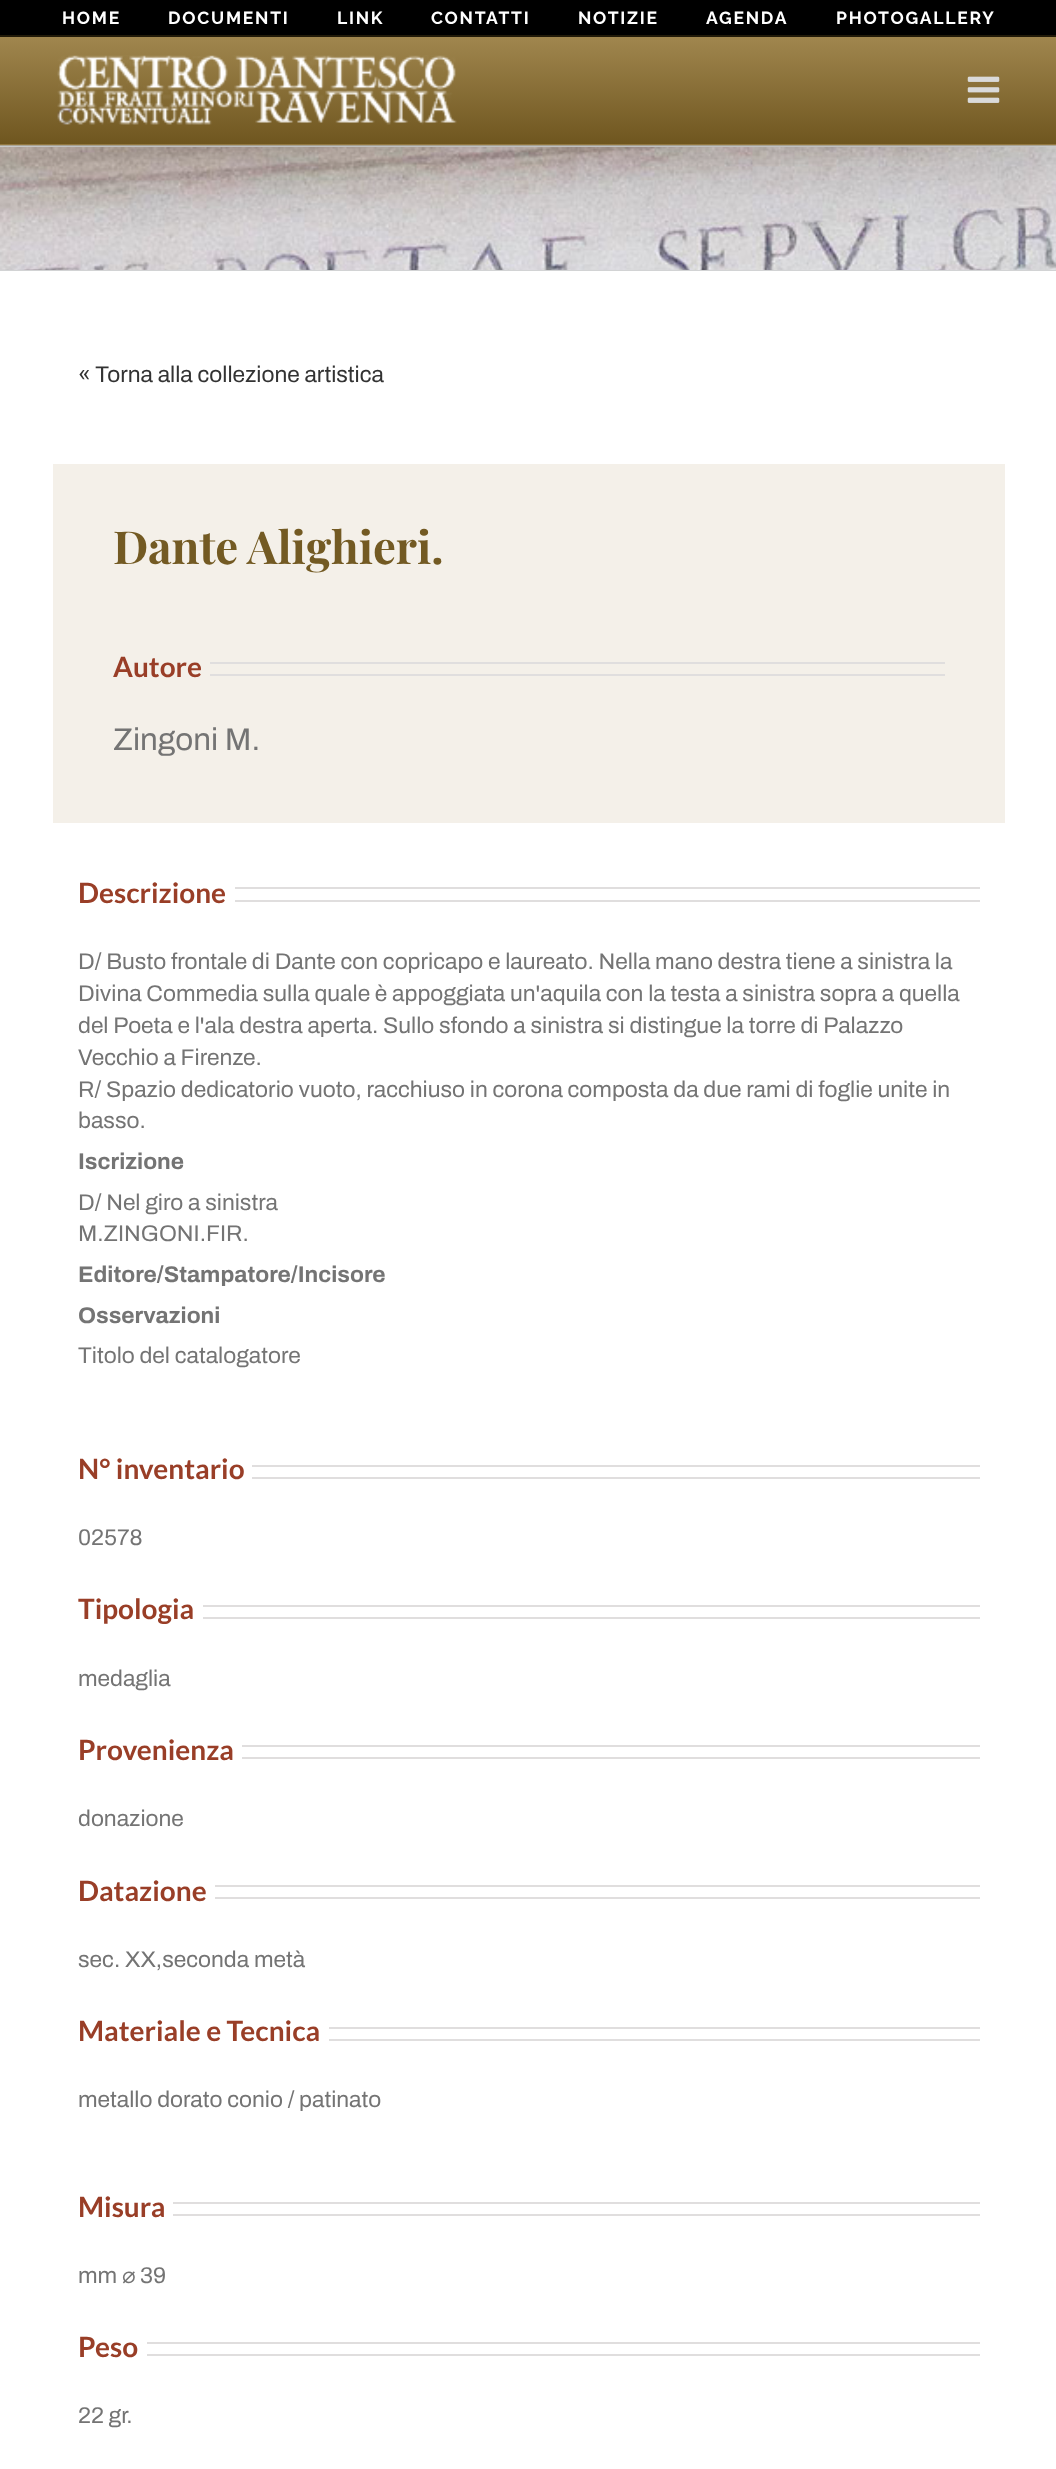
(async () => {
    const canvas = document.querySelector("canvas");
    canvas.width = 1056;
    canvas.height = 2469;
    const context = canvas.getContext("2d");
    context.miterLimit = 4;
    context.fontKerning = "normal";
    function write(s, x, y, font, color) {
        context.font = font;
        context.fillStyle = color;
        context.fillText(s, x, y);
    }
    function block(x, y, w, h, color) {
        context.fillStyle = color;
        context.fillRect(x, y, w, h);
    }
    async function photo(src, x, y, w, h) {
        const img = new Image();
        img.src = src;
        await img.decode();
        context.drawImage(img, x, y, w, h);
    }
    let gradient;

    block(0, 0, 1056, 2469, "rgb(255, 255, 255)");
    await photo("media/3.png", 0, 147, 1056, 123);
    block(0, 145, 1056, 2, "rgb(210, 211, 212)");
    block(0, 270, 1056, 1, "rgb(210, 211, 212)");
    context.fillStyle = "rgba(0, 0, 0, 0.14)";
    context.filter = "blur(44px)";
    context.beginPath();
    context.rect(4, 21, 1050, 138);
    context.fill();
    context.filter = "none";
    block(0, 0, 1056, 35, "rgb(0, 0, 0)");
    block(0, 35, 1056, 2, "rgb(33, 26, 9)");
    context.letterSpacing = "1.75px";
    write("HOME", 62, 24, "100 17.5px Raleway", "rgb(255, 255, 255)");
    write("DOCUMENTI", 168, 24, "100 17.5px Raleway", "rgb(255, 255, 255)");
    write("LINK", 337, 24, "100 17.5px Raleway", "rgb(255, 255, 255)");
    write("CONTATTI", 431, 24, "100 17.5px Raleway", "rgb(255, 255, 255)");
    write("NOTIZIE", 578, 24, "100 17.5px Raleway", "rgb(255, 255, 255)");
    write("AGENDA", 706, 24, "100 17.5px Raleway", "rgb(255, 255, 255)");
    write("PHOTOGALLERY", 836, 24, "100 17.5px Raleway", "rgb(255, 255, 255)");
    gradient = context.createLinearGradient(529, 37, 529, 144);
    gradient.addColorStop(0, "rgb(160, 134, 78)");
    gradient.addColorStop(1, "rgb(111, 86, 31)");
    context.fillStyle = gradient;
    context.fillRect(0, 37, 1056, 107);
    gradient = context.createLinearGradient(529, 143, 529, 250);
    gradient.addColorStop(0, "rgb(160, 134, 78)");
    gradient.addColorStop(1, "rgb(111, 86, 31)");
    context.fillStyle = gradient;
    context.fillRect(0, 144, 1056, 1);
    block(0, 144, 1056, 2, "rgba(111, 86, 31, 0.3)");
    await photo("media/1.png", 57, 55, 400, 70);
    await photo("media/2.png", 967, 76, 33, 27);
    context.letterSpacing = "0px";
    write("« Torna alla collezione artistica", 78, 382, "22.75px Archivo", "rgb(51, 51, 51)");
    block(53, 464, 952, 359, "rgb(244, 240, 233)");
    write("Dante Alighieri.", 113, 564, "bold 45.5px Playfair Display", "rgb(115, 90, 35)");
    write("Autore", 113, 677, "bold 28px Lato", "rgb(153, 62, 39)");
    block(210, 662, 735, 2, "rgb(224, 222, 222)");
    block(210, 674, 735, 2, "rgb(224, 222, 222)");
    write("Zingoni M.", 113, 750, "31.5px Archivo", "rgb(116, 116, 116)");
    write("Descrizione", 78, 903, "bold 28px Lato", "rgb(153, 62, 39)");
    block(235, 887, 745, 2, "rgb(224, 222, 222)");
    block(235, 900, 745, 2, "rgb(224, 222, 222)");
    write("D/ Busto frontale di Dante con copricapo e laureato. Nella mano destra tiene a sinistra la", 78, 969, "22.75px Archivo", "rgb(116, 116, 116)");
    write("Divina Commedia sulla quale è appoggiata un'aquila con la testa a sinistra sopra a quella", 78, 1001, "22.75px Archivo", "rgb(116, 116, 116)");
    write("del Poeta e l'ala destra aperta. Sullo sfondo a sinistra si distingue la torre di Palazzo", 78, 1033, "22.75px Archivo", "rgb(116, 116, 116)");
    write("Vecchio a Firenze.", 78, 1065, "22.75px Archivo", "rgb(116, 116, 116)");
    write("R/ Spazio dedicatorio vuoto, racchiuso in corona composta da due rami di foglie unite in", 78, 1097, "22.75px Archivo", "rgb(116, 116, 116)");
    write("basso.", 78, 1128, "22.75px Archivo", "rgb(116, 116, 116)");
    write("Iscrizione", 78, 1169, "bold 22.75px Archivo", "rgb(116, 116, 116)");
    write("D/ Nel giro a sinistra", 78, 1210, "22.75px Archivo", "rgb(116, 116, 116)");
    write("M.ZINGONI.FIR.", 78, 1241, "22.75px Archivo", "rgb(116, 116, 116)");
    write("Editore/Stampatore/Incisore", 78, 1282, "bold 22.75px Archivo", "rgb(116, 116, 116)");
    write("Osservazioni", 78, 1323, "bold 22.75px Archivo", "rgb(116, 116, 116)");
    write("Titolo del catalogatore", 78, 1363, "22.75px Archivo", "rgb(116, 116, 116)");
    write("N° inventario", 78, 1479, "bold 28px Lato", "rgb(153, 62, 39)");
    block(252, 1465, 728, 2, "rgb(224, 222, 222)");
    block(252, 1477, 728, 2, "rgb(224, 222, 222)");
    write("02578", 78, 1545, "22.75px Archivo", "rgb(116, 116, 116)");
    write("Tipologia", 78, 1619, "bold 28px Lato", "rgb(153, 62, 39)");
    block(203, 1605, 777, 2, "rgb(224, 222, 222)");
    block(203, 1617, 777, 2, "rgb(224, 222, 222)");
    write("medaglia", 78, 1686, "22.75px Archivo", "rgb(116, 116, 116)");
    write("Provenienza", 78, 1760, "bold 28px Lato", "rgb(153, 62, 39)");
    block(242, 1745, 738, 2, "rgb(224, 222, 222)");
    block(242, 1757, 738, 2, "rgb(224, 222, 222)");
    write("donazione", 78, 1826, "22.75px Archivo", "rgb(116, 116, 116)");
    write("Datazione", 78, 1901, "bold 28px Lato", "rgb(153, 62, 39)");
    block(215, 1885, 765, 2, "rgb(224, 222, 222)");
    block(215, 1897, 765, 2, "rgb(224, 222, 222)");
    write("sec. XX,seconda metà", 78, 1967, "22.75px Archivo", "rgb(116, 116, 116)");
    write("Materiale e Tecnica", 78, 2041, "bold 28px Lato", "rgb(153, 62, 39)");
    block(329, 2027, 651, 2, "rgb(224, 222, 222)");
    block(329, 2039, 651, 2, "rgb(224, 222, 222)");
    write("metallo dorato conio / patinato", 78, 2107, "22.75px Archivo", "rgb(116, 116, 116)");
    write("Misura", 78, 2217, "bold 28px Lato", "rgb(153, 62, 39)");
    block(173, 2202, 807, 2, "rgb(224, 222, 222)");
    block(173, 2214, 807, 2, "rgb(224, 222, 222)");
    write("mm", 78, 2283, "22.75px Archivo", "rgb(116, 116, 116)");
    write("⌀", 122, 2283, "22.75px DejaVu Sans", "rgb(116, 116, 116)");
    write("39", 140, 2283, "22.75px Archivo", "rgb(116, 116, 116)");
    write("Peso", 78, 2357, "bold 28px Lato", "rgb(153, 62, 39)");
    block(147, 2342, 833, 2, "rgb(224, 222, 222)");
    block(147, 2354, 833, 2, "rgb(224, 222, 222)");
    write("22 gr.", 78, 2423, "22.75px Archivo", "rgb(116, 116, 116)");
})();
